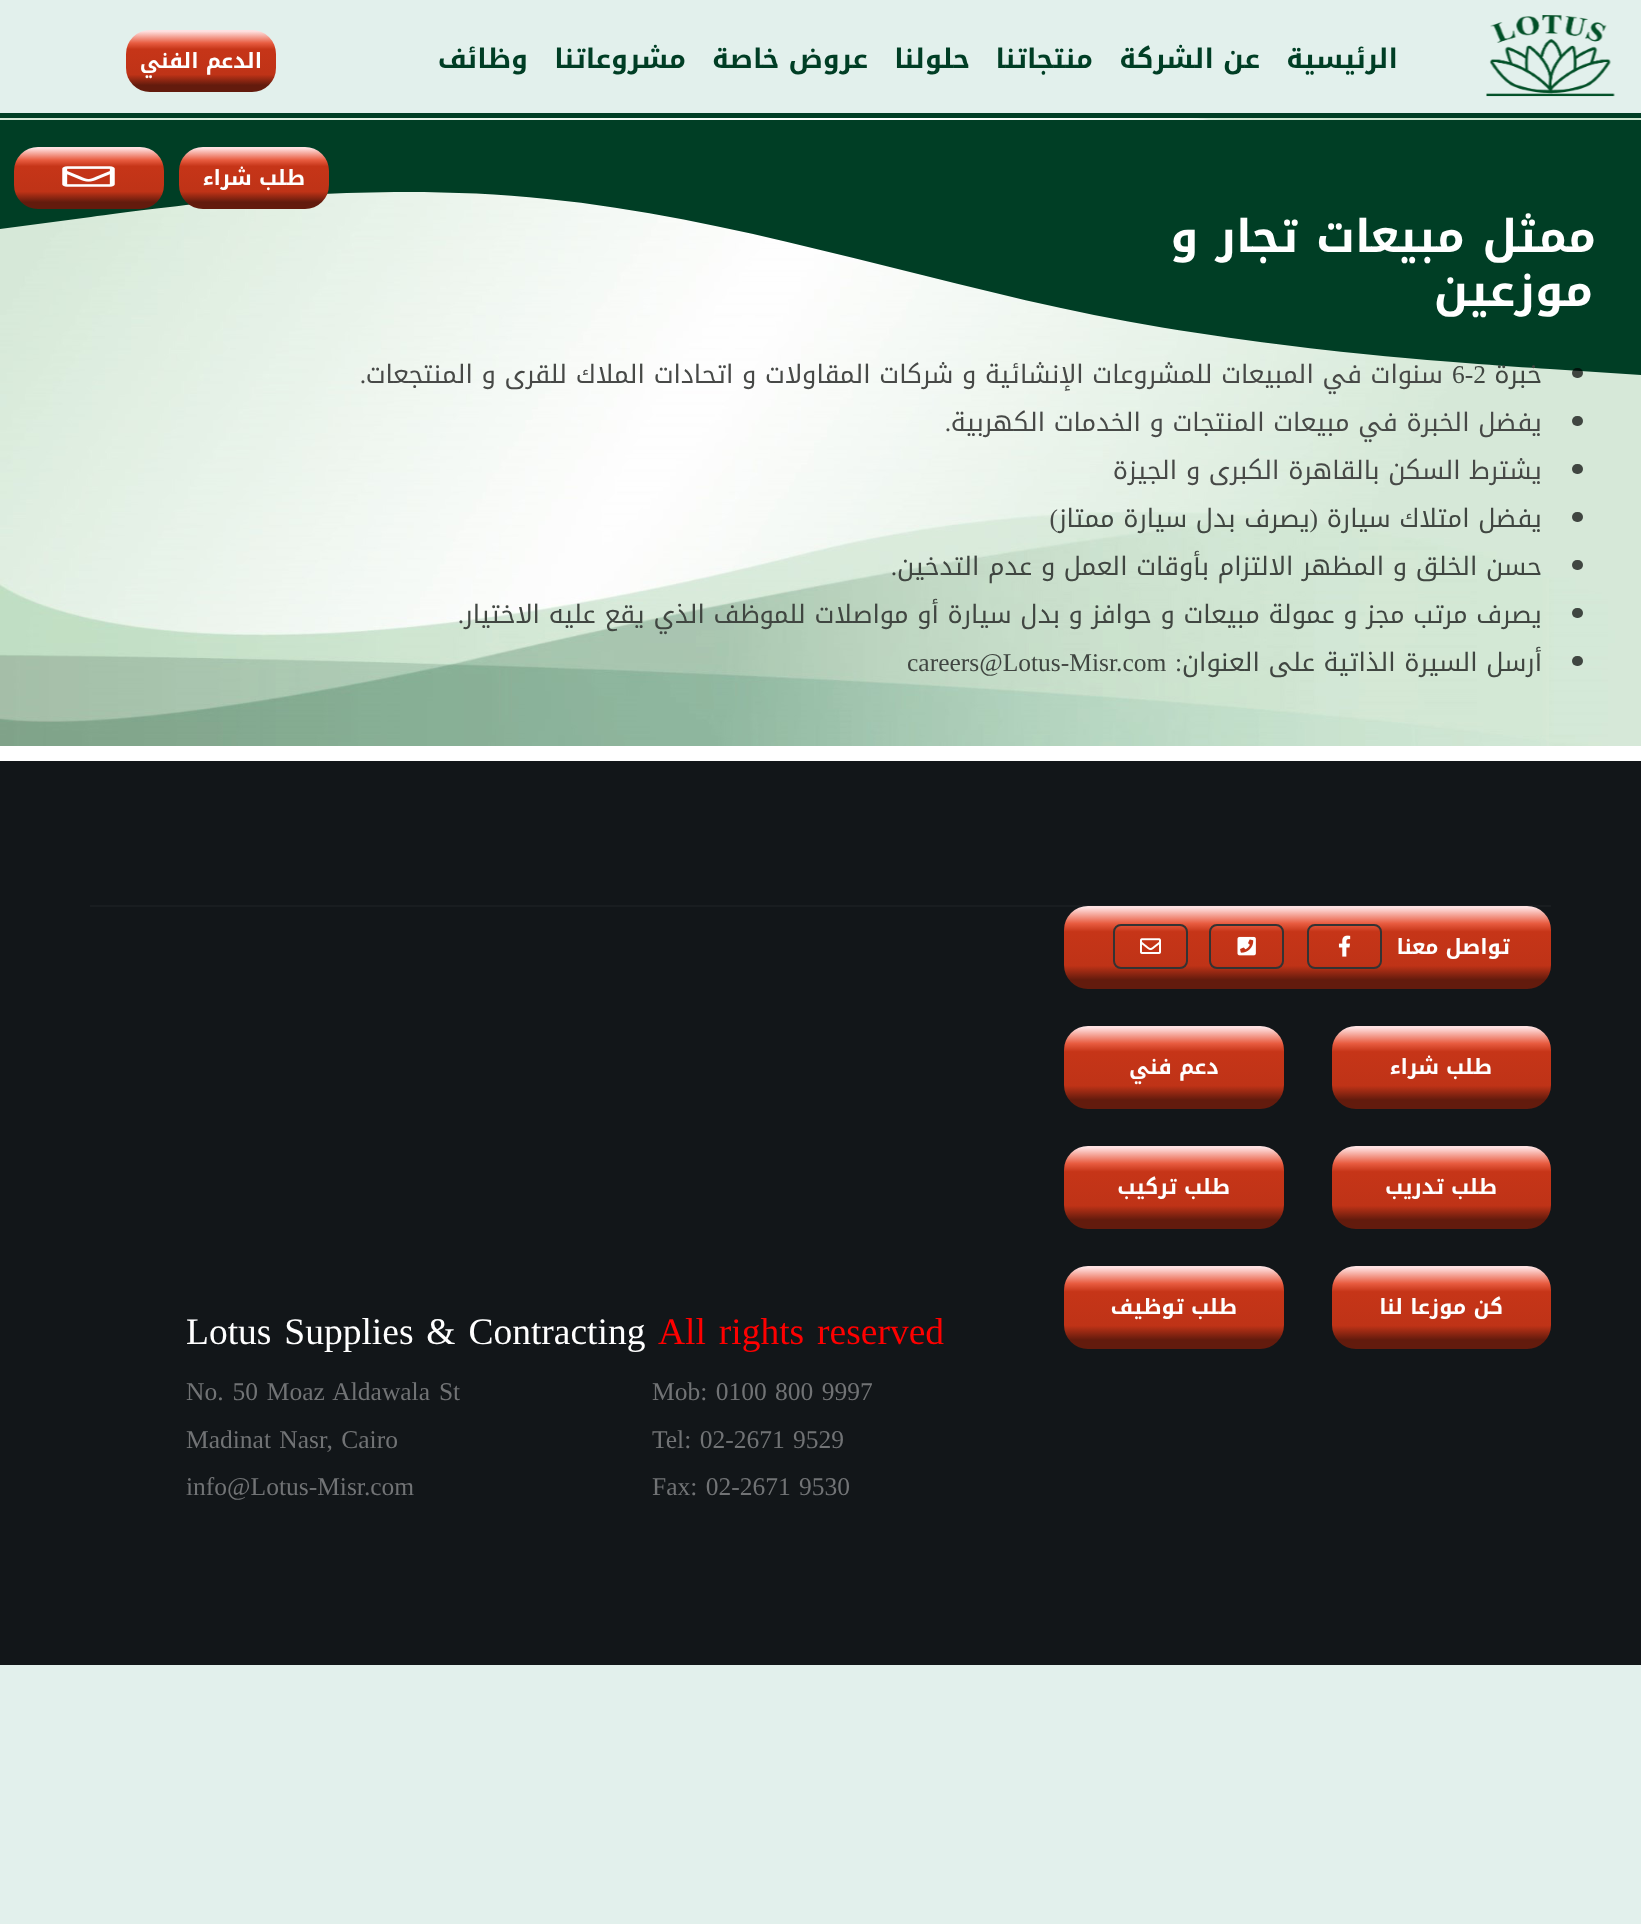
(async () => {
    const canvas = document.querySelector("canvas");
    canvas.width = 1641;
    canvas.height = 1924;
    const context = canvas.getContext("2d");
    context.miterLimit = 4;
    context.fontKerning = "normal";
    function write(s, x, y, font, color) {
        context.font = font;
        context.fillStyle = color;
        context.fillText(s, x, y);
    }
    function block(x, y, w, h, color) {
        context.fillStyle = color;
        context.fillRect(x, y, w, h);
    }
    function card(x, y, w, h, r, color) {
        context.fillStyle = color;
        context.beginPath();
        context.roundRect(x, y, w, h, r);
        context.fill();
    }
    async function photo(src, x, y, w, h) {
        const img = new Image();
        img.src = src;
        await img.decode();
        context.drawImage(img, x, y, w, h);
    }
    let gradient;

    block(0, 0, 1641, 1924, "rgb(226, 240, 236)");
    block(0, 113, 1641, 5, "rgb(0, 62, 37)");
    await photo("media/1.png", 1486, 15, 129, 82);
    context.direction = "rtl";
    write("الرئيسية", 1398, 68, "bold 27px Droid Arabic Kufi", "rgb(0, 62, 37)");
    write("عن الشركة", 1260, 68, "bold 27px Droid Arabic Kufi", "rgb(0, 62, 37)");
    write("منتجاتنا", 1093, 68, "bold 27px Droid Arabic Kufi", "rgb(0, 62, 37)");
    write("حلولنا", 970, 68, "bold 27px Droid Arabic Kufi", "rgb(0, 62, 37)");
    write("عروض خاصة", 868, 68, "bold 27px Droid Arabic Kufi", "rgb(0, 62, 37)");
    write("مشروعاتنا", 686, 68, "bold 27px Droid Arabic Kufi", "rgb(0, 62, 37)");
    write("وظائف", 528, 68, "bold 27px Droid Arabic Kufi", "rgb(0, 62, 37)");
    gradient = context.createLinearGradient(201, 30, 201, 92);
    gradient.addColorStop(0.02, "rgb(255, 225, 225)");
    gradient.addColorStop(0.21, "rgb(232, 92, 64)");
    gradient.addColorStop(0.31, "rgb(198, 53, 24)");
    gradient.addColorStop(0.72, "rgb(191, 51, 23)");
    gradient.addColorStop(0.89, "rgb(99, 27, 13)");
    context.fillStyle = gradient;
    context.beginPath();
    context.roundRect(126, 30, 150, 62, 24);
    context.fill();
    write("الدعم الفني", 262, 68, "bold 21px Droid Arabic Kufi", "rgb(255, 255, 255)");
    await photo("media/3.png", 0, 118, 1641, 628);
    context.fillStyle = "rgb(0, 62, 37)";
    context.beginPath();
    context.moveTo(0, 229);
    context.lineTo(91, 217);
    context.bezierCurveTo(182, 205, 365, 180, 547, 199);
    context.bezierCurveTo(729, 217, 912, 278, 1094, 315);
    context.bezierCurveTo(1276, 351, 1459, 363, 1550, 369);
    context.lineTo(1641, 375);
    context.lineTo(1641, 120);
    context.lineTo(0, 120);
    context.closePath();
    context.fill();
    gradient = context.createLinearGradient(254, 147, 254, 209);
    gradient.addColorStop(0.02, "rgb(255, 225, 225)");
    gradient.addColorStop(0.21, "rgb(232, 92, 64)");
    gradient.addColorStop(0.31, "rgb(198, 53, 24)");
    gradient.addColorStop(0.72, "rgb(191, 51, 23)");
    gradient.addColorStop(0.89, "rgb(99, 27, 13)");
    context.fillStyle = gradient;
    context.beginPath();
    context.roundRect(179, 147, 150, 62, 24);
    context.fill();
    write("طلب شراء", 305, 185, "bold 21px Droid Arabic Kufi", "rgb(255, 255, 255)");
    gradient = context.createLinearGradient(89, 147, 89, 209);
    gradient.addColorStop(0.02, "rgb(255, 225, 225)");
    gradient.addColorStop(0.21, "rgb(232, 92, 64)");
    gradient.addColorStop(0.31, "rgb(198, 53, 24)");
    gradient.addColorStop(0.72, "rgb(191, 51, 23)");
    gradient.addColorStop(0.89, "rgb(99, 27, 13)");
    context.fillStyle = gradient;
    context.beginPath();
    context.roundRect(14, 147, 150, 62, 24);
    context.fill();
    await photo("media/2.png", 62, 166, 53, 21);
    block(0, 746, 1641, 15, "rgb(255, 255, 255)");
    context.letterSpacing = "-0.5px";
    context.wordSpacing = "3px";
    write("ممثل مبيعات تجار و", 1596, 252, "bold 45px Droid Arabic Kufi", "rgb(255, 255, 255)");
    context.wordSpacing = "0px";
    write("موزعين", 1593, 306, "bold 45px Droid Arabic Kufi", "rgb(255, 255, 255)");
    card(1572, 368, 11, 10, 5, "rgba(0, 0, 0, 0.7)");
    context.letterSpacing = "0px";
    write("خبرة", 1542, 383, "25.5px Droid Arabic Kufi", "rgb(64, 70, 65)");
    context.direction = "ltr";
    write("6-2", 1452, 383, "25.5px Liberation Serif", "rgb(64, 70, 65)");
    context.direction = "rtl";
    write("سنوات في المبيعات للمشروعات الإنشائية و شركات المقاولات و اتحادات الملاك للقرى و المنتجعات", 1443, 383, "25.5px Droid Arabic Kufi", "rgb(71, 73, 71)");
    write(".", 366, 383, "25.5px Liberation Serif", "rgb(71, 73, 71)");
    card(1572, 416, 11, 10, 5, "rgb(64, 70, 65)");
    write("يفضل الخبرة في مبيعات المنتجات و الخدمات الكهربية", 1542, 431, "25.5px Droid Arabic Kufi", "rgb(71, 73, 71)");
    write(".", 951, 431, "25.5px Liberation Serif", "rgb(71, 73, 71)");
    card(1572, 464, 11, 10, 5, "rgb(64, 70, 65)");
    write("يشترط السكن بالقاهرة الكبرى و الجيزة", 1542, 479, "25.5px Droid Arabic Kufi", "rgb(71, 73, 71)");
    card(1572, 512, 11, 10, 5, "rgb(64, 70, 65)");
    write("يفضل امتلاك سيارة", 1542, 527, "25.5px Droid Arabic Kufi", "rgb(64, 70, 65)");
    write("(", 1318, 527, "25.5px Liberation Serif", "rgb(64, 70, 65)");
    write(")", 1058, 527, "25.5px Liberation Serif", "rgb(71, 73, 71)");
    write("يصرف بدل سيارة ممتاز", 1310, 527, "25.5px Droid Arabic Kufi", "rgb(64, 70, 65)");
    card(1572, 560, 11, 10, 5, "rgb(64, 70, 65)");
    write("حسن الخلق و المظهر الالتزام بأوقات العمل و عدم التدخين", 1542, 575, "25.5px Droid Arabic Kufi", "rgb(64, 70, 65)");
    write(".", 897, 575, "25.5px Liberation Serif", "rgb(58, 65, 59)");
    card(1572, 608, 11, 10, 5, "rgb(63, 70, 65)");
    write("يصرف مرتب مجز و عمولة مبيعات و حوافز و بدل سيارة أو مواصلات للموظف الذي يقع عليه الاختيار", 1542, 623, "25.5px Droid Arabic Kufi", "rgb(64, 70, 65)");
    write(".", 464, 623, "25.5px Liberation Serif", "rgb(71, 73, 71)");
    card(1572, 656, 11, 10, 5, "rgb(64, 70, 65)");
    write("أرسل السيرة الذاتية على العنوان", 1542, 671, "25.5px Droid Arabic Kufi", "rgb(64, 70, 65)");
    write(":", 1182, 671, "25.5px Liberation Serif", "rgb(64, 70, 65)");
    context.direction = "ltr";
    write("careers@Lotus-Misr.com", 907, 671, "25.5px Liberation Serif", "rgb(64, 70, 65)");
    block(0, 761, 1641, 904, "rgb(18, 22, 25)");
    block(90, 905, 1461, 2, "rgb(25, 29, 32)");
    gradient = context.createLinearGradient(1307, 906, 1307, 989);
    gradient.addColorStop(0.02, "rgb(255, 225, 225)");
    gradient.addColorStop(0.21, "rgb(232, 92, 64)");
    gradient.addColorStop(0.31, "rgb(198, 53, 24)");
    gradient.addColorStop(0.72, "rgb(191, 51, 23)");
    gradient.addColorStop(0.89, "rgb(99, 27, 13)");
    context.fillStyle = gradient;
    context.beginPath();
    context.roundRect(1064, 906, 487, 83, 24);
    context.fill();
    context.direction = "rtl";
    write("تواصل معنا", 1510, 954, "bold 21px Droid Arabic Kufi", "rgb(255, 255, 255)");
    context.beginPath();
    context.roundRect(1308, 925, 73, 43, 7);
    context.strokeStyle = "rgb(51, 51, 51)";
    context.lineWidth = 2;
    context.stroke();
    await photo("media/4.png", 1338, 935, 13, 22);
    context.beginPath();
    context.roundRect(1210, 925, 73, 43, 7);
    context.stroke();
    await photo("media/5.png", 1237, 936, 19, 20);
    context.beginPath();
    context.roundRect(1114, 925, 73, 43, 7);
    context.stroke();
    await photo("media/6.png", 1140, 938, 21, 16);
    gradient = context.createLinearGradient(1442, 1026, 1442, 1109);
    gradient.addColorStop(0.02, "rgb(255, 225, 225)");
    gradient.addColorStop(0.21, "rgb(232, 92, 64)");
    gradient.addColorStop(0.31, "rgb(198, 53, 24)");
    gradient.addColorStop(0.72, "rgb(191, 51, 23)");
    gradient.addColorStop(0.89, "rgb(99, 27, 13)");
    context.fillStyle = gradient;
    context.beginPath();
    context.roundRect(1332, 1026, 219, 83, 24);
    context.fill();
    write("طلب", 1492, 1074, "bold 21px Droid Arabic Kufi", "rgb(255, 255, 255)");
    write("شراء", 1439, 1074, "bold 21px Droid Arabic Kufi", "rgb(255, 255, 255)");
    gradient = context.createLinearGradient(1442, 1146, 1442, 1229);
    gradient.addColorStop(0.02, "rgb(255, 225, 225)");
    gradient.addColorStop(0.21, "rgb(232, 92, 64)");
    gradient.addColorStop(0.31, "rgb(198, 53, 24)");
    gradient.addColorStop(0.72, "rgb(191, 51, 23)");
    gradient.addColorStop(0.89, "rgb(99, 27, 13)");
    context.fillStyle = gradient;
    context.beginPath();
    context.roundRect(1332, 1146, 219, 83, 24);
    context.fill();
    write("طلب", 1497, 1194, "bold 21px Droid Arabic Kufi", "rgb(255, 255, 255)");
    write("تدريب", 1444, 1194, "bold 21px Droid Arabic Kufi", "rgb(255, 255, 255)");
    gradient = context.createLinearGradient(1442, 1266, 1442, 1349);
    gradient.addColorStop(0.02, "rgb(255, 225, 225)");
    gradient.addColorStop(0.21, "rgb(232, 92, 64)");
    gradient.addColorStop(0.31, "rgb(198, 53, 24)");
    gradient.addColorStop(0.72, "rgb(191, 51, 23)");
    gradient.addColorStop(0.89, "rgb(99, 27, 13)");
    context.fillStyle = gradient;
    context.beginPath();
    context.roundRect(1332, 1266, 219, 83, 24);
    context.fill();
    write("كن موزعا", 1503, 1314, "bold 21px Droid Arabic Kufi", "rgb(255, 255, 255)");
    write("لنا", 1403, 1314, "bold 21px Droid Arabic Kufi", "rgb(255, 255, 255)");
    gradient = context.createLinearGradient(1174, 1026, 1174, 1109);
    gradient.addColorStop(0.02, "rgb(255, 225, 225)");
    gradient.addColorStop(0.21, "rgb(232, 92, 64)");
    gradient.addColorStop(0.31, "rgb(198, 53, 24)");
    gradient.addColorStop(0.72, "rgb(191, 51, 23)");
    gradient.addColorStop(0.89, "rgb(99, 27, 13)");
    context.fillStyle = gradient;
    context.beginPath();
    context.roundRect(1064, 1026, 220, 83, 24);
    context.fill();
    write("دعم فني", 1219, 1074, "bold 21px Droid Arabic Kufi", "rgb(255, 255, 255)");
    gradient = context.createLinearGradient(1174, 1146, 1174, 1229);
    gradient.addColorStop(0.02, "rgb(255, 225, 225)");
    gradient.addColorStop(0.21, "rgb(232, 92, 64)");
    gradient.addColorStop(0.31, "rgb(198, 53, 24)");
    gradient.addColorStop(0.72, "rgb(191, 51, 23)");
    gradient.addColorStop(0.89, "rgb(99, 27, 13)");
    context.fillStyle = gradient;
    context.beginPath();
    context.roundRect(1064, 1146, 220, 83, 24);
    context.fill();
    write("طلب تركيب", 1230, 1194, "bold 21px Droid Arabic Kufi", "rgb(255, 255, 255)");
    gradient = context.createLinearGradient(1174, 1266, 1174, 1349);
    gradient.addColorStop(0.02, "rgb(255, 225, 225)");
    gradient.addColorStop(0.21, "rgb(232, 92, 64)");
    gradient.addColorStop(0.31, "rgb(198, 53, 24)");
    gradient.addColorStop(0.72, "rgb(191, 51, 23)");
    gradient.addColorStop(0.89, "rgb(99, 27, 13)");
    context.fillStyle = gradient;
    context.beginPath();
    context.roundRect(1064, 1266, 220, 83, 24);
    context.fill();
    write("طلب", 1237, 1314, "bold 21px Droid Arabic Kufi", "rgb(255, 255, 255)");
    write("توظيف", 1184, 1314, "bold 21px Droid Arabic Kufi", "rgb(255, 255, 255)");
    context.wordSpacing = "3.5px";
    context.direction = "ltr";
    write("All rights reserved", 658, 1344, "37.5px Liberation Serif", "rgb(255, 0, 0)");
    write("Lotus Supplies & Contracting", 186, 1344, "37.5px Liberation Serif", "rgb(255, 255, 255)");
    context.wordSpacing = "2px";
    write("Mob: 0100 800 9997", 652, 1400, "25.5px Liberation Serif", "rgb(113, 115, 117)");
    write("Tel: 02-2671 9529", 652, 1448, "25.5px Liberation Serif", "rgb(113, 115, 117)");
    write("Fax: 02-2671 9530", 652, 1495, "25.5px Liberation Serif", "rgb(113, 115, 117)");
    context.wordSpacing = "2.5px";
    write("No. 50 Moaz Aldawala St", 186, 1400, "25.5px Liberation Serif", "rgb(113, 115, 117)");
    context.wordSpacing = "2px";
    write("Madinat Nasr, Cairo", 186, 1448, "25.5px Liberation Serif", "rgb(113, 115, 117)");
    context.wordSpacing = "0px";
    write("info@Lotus-Misr.com", 186, 1495, "25.5px Liberation Serif", "rgb(113, 115, 117)");
})();
